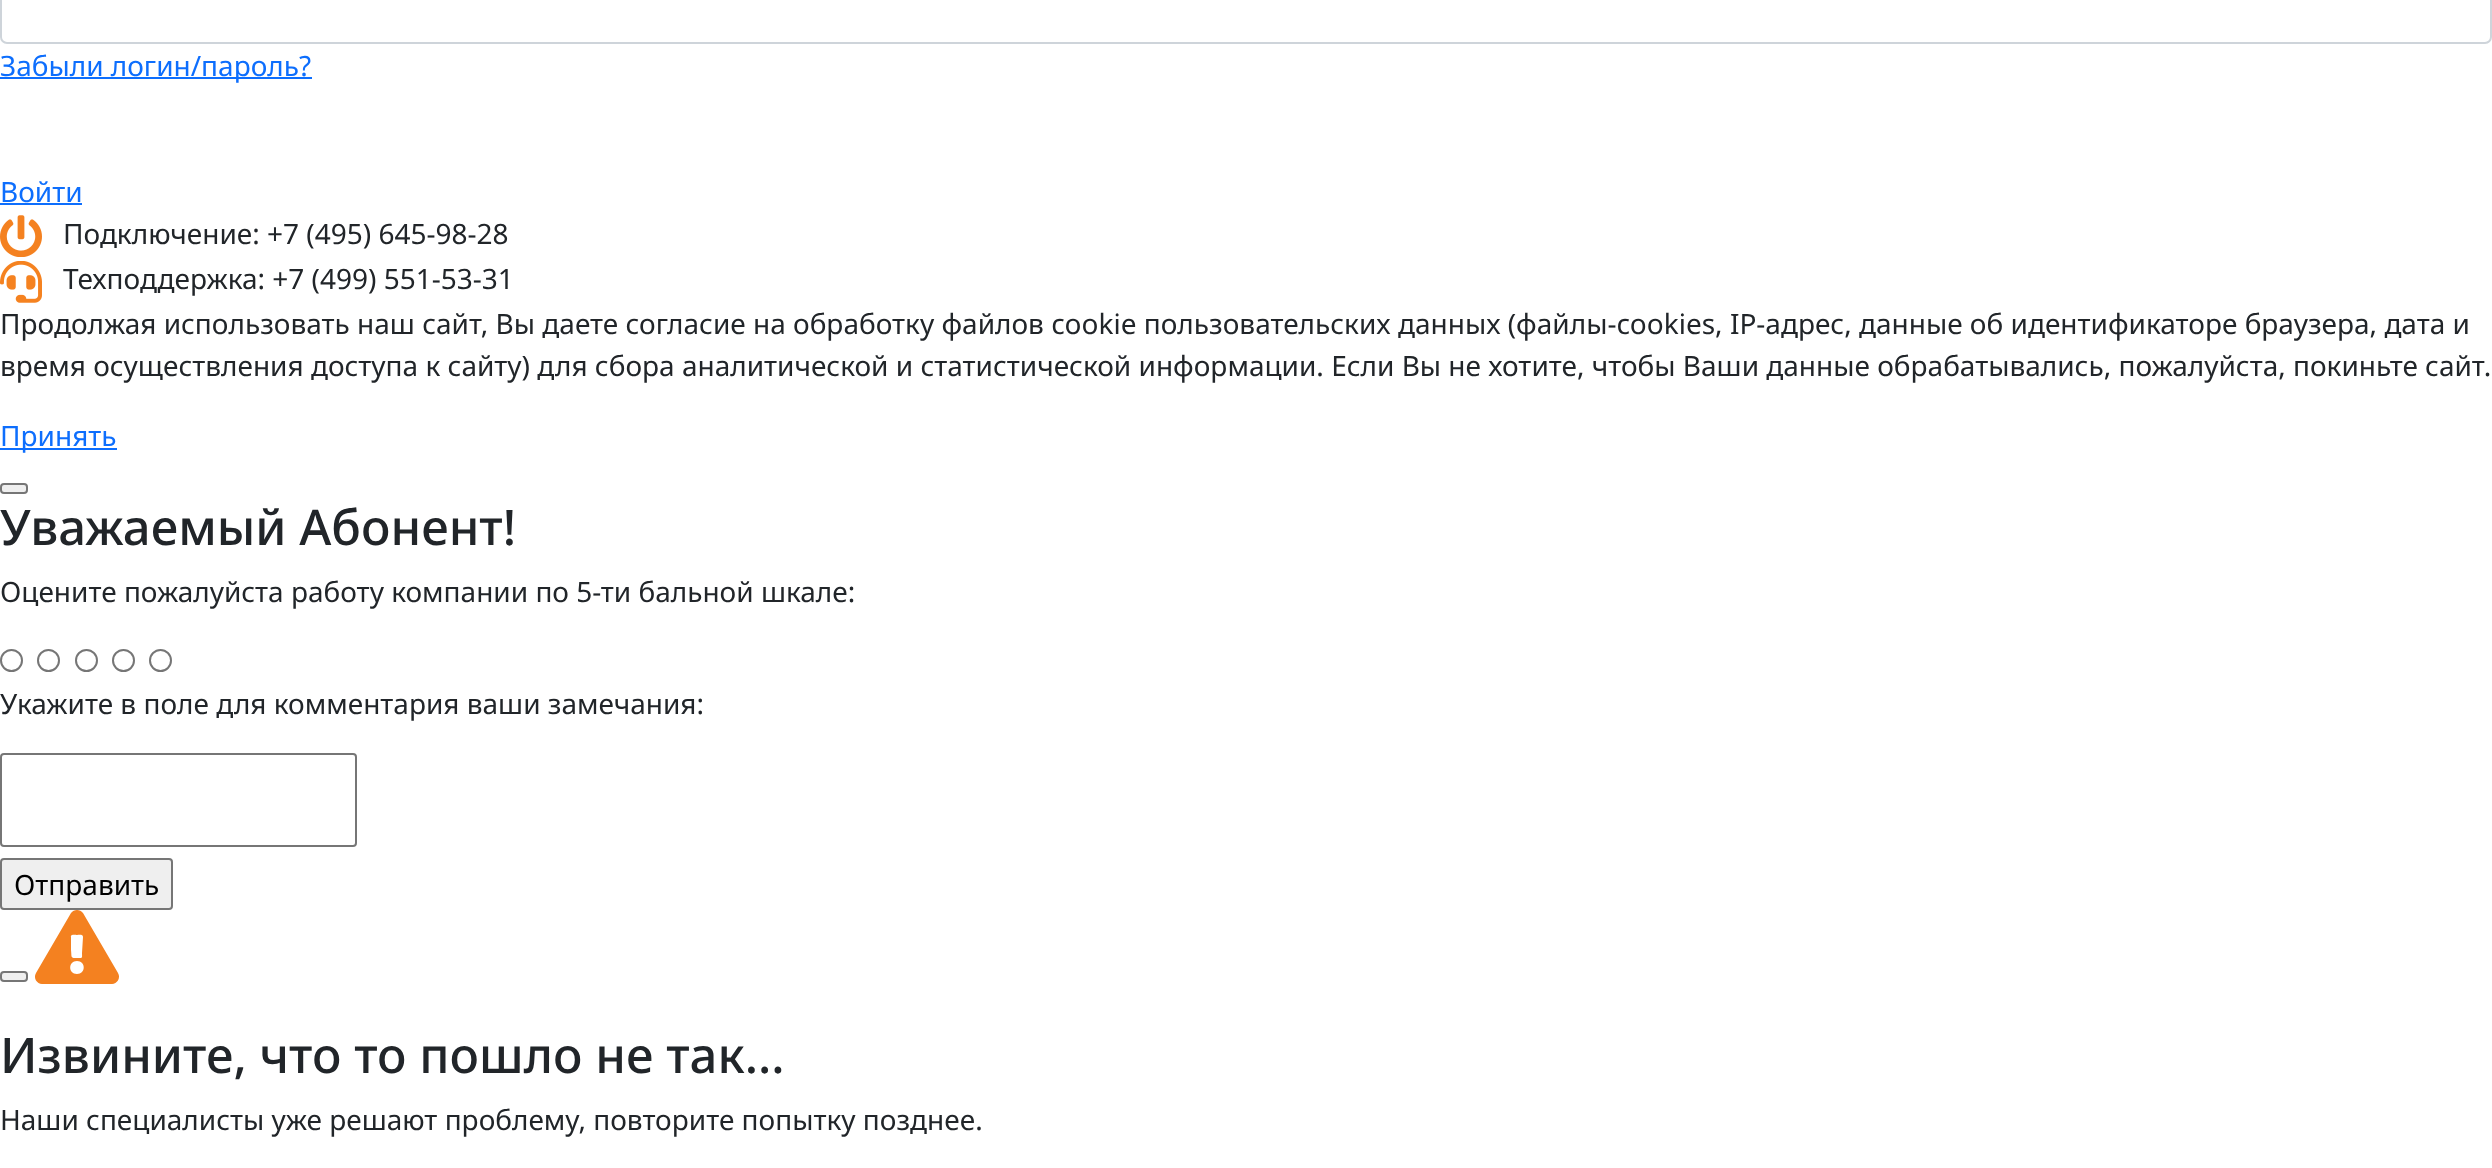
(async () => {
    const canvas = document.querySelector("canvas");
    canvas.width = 2492;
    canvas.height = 1168;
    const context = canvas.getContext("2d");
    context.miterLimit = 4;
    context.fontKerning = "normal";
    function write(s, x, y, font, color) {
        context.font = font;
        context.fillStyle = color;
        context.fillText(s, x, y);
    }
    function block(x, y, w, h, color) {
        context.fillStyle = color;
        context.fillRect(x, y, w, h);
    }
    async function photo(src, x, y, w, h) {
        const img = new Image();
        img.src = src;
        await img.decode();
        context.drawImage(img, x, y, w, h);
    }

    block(0, 0, 2492, 1168, "rgb(255, 255, 255)");
    context.beginPath();
    context.roundRect(1, -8, 2490, 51, 6);
    context.strokeStyle = "rgb(206, 212, 218)";
    context.lineWidth = 2;
    context.stroke();
    block(0, 77, 312, 2, "rgb(13, 110, 253)");
    write("Забыли логин/пароль?", 0, 76, "28px Noto Sans", "rgb(13, 110, 253)");
    write("Войти", 0, 202, "28px Noto Sans", "rgb(13, 110, 253)");
    block(0, 203, 82, 2, "rgb(13, 110, 253)");
    await photo("media/1.png", 0, 215, 42, 42);
    write("Подключение: +7 (495) 645-98-28", 63, 244, "28px Noto Sans", "rgb(33, 37, 41)");
    await photo("media/2.png", 0, 261, 42, 42);
    write("Техподдержка: +7 (499) 551-53-31", 63, 289, "28px Noto Sans", "rgb(33, 37, 41)");
    write("Продолжая использовать наш сайт, Вы даете согласие на обработку файлов cookie пользовательских данных (файлы-cookies, IP-адрес, данные об идентификаторе браузера, дата и", 0, 334, "28px Noto Sans", "rgb(33, 37, 41)");
    write("время осуществления доступа к сайту) для сбора аналитической и статистической информации. Если Вы не хотите, чтобы Ваши данные обрабатывались, пожалуйста, покиньте сайт.", 0, 376, "28px Noto Sans", "rgb(33, 37, 41)");
    block(0, 448, 117, 2, "rgb(13, 110, 253)");
    write("Принять", 0, 446, "28px Noto Sans", "rgb(13, 110, 253)");
    context.fillStyle = "rgb(239, 239, 239)";
    context.beginPath();
    context.roundRect(1, 484, 26, 9, 3);
    context.fill();
    context.strokeStyle = "rgb(118, 118, 118)";
    context.stroke();
    write("Уважаемый Абонент!", 0, 545, "500 49px Noto Sans", "rgb(33, 37, 41)");
    write("Оцените пожалуйста работу компании по 5-ти бальной шкале:", 0, 602, "28px Noto Sans", "rgb(33, 37, 41)");
    context.beginPath();
    context.arc(11.5, 660.5, 10.5, 0, Math.PI * 2);
    context.stroke();
    context.beginPath();
    context.arc(48.5, 660.5, 10.5, 0, Math.PI * 2);
    context.stroke();
    context.beginPath();
    context.arc(86.5, 660.5, 10.5, 0, Math.PI * 2);
    context.stroke();
    context.beginPath();
    context.arc(123.5, 660.5, 10.5, 0, Math.PI * 2);
    context.stroke();
    context.beginPath();
    context.arc(160.5, 660.5, 10.5, 0, Math.PI * 2);
    context.stroke();
    write("Укажите в поле для комментария ваши замечания:", 0, 714, "28px Noto Sans", "rgb(33, 37, 41)");
    context.beginPath();
    context.roundRect(1, 754, 355, 92, 3);
    context.stroke();
    context.fillStyle = "rgb(239, 239, 239)";
    context.beginPath();
    context.roundRect(1, 859, 171, 50, 3);
    context.fill();
    context.stroke();
    write("Отправить", 14, 895, "28px Noto Sans", "rgb(0, 0, 0)");
    context.fillStyle = "rgb(239, 239, 239)";
    context.beginPath();
    context.roundRect(1, 972, 26, 9, 3);
    context.fill();
    context.stroke();
    context.fillStyle = "rgb(244, 129, 32)";
    context.beginPath();
    context.moveTo(118, 973);
    context.bezierCurveTo(121, 978, 117, 984, 112, 984);
    context.lineTo(42, 984);
    context.bezierCurveTo(37, 984, 33, 978, 36, 973);
    context.lineTo(71, 913);
    context.bezierCurveTo(74, 909, 80, 909, 83, 913);
    context.closePath();
    context.moveTo(77, 961);
    context.bezierCurveTo(68, 961, 68, 974, 77, 974);
    context.bezierCurveTo(86, 974, 86, 961, 77, 961);
    context.closePath();
    context.moveTo(71, 937);
    context.lineTo(71, 950);
    context.bezierCurveTo(72, 958, 70, 958, 78, 958);
    context.bezierCurveTo(83, 958, 82, 958, 82, 953);
    context.lineTo(83, 937);
    context.bezierCurveTo(83, 934, 79, 935, 77, 935);
    context.bezierCurveTo(76, 935, 70, 934, 71, 937);
    context.closePath();
    context.fill();
    write("Извините, что то пошло не так...", 0, 1073, "500 49px Noto Sans", "rgb(33, 37, 41)");
    write("Наши специалисты уже решают проблему, повторите попытку позднее.", 0, 1130, "28px Noto Sans", "rgb(33, 37, 41)");
})();
